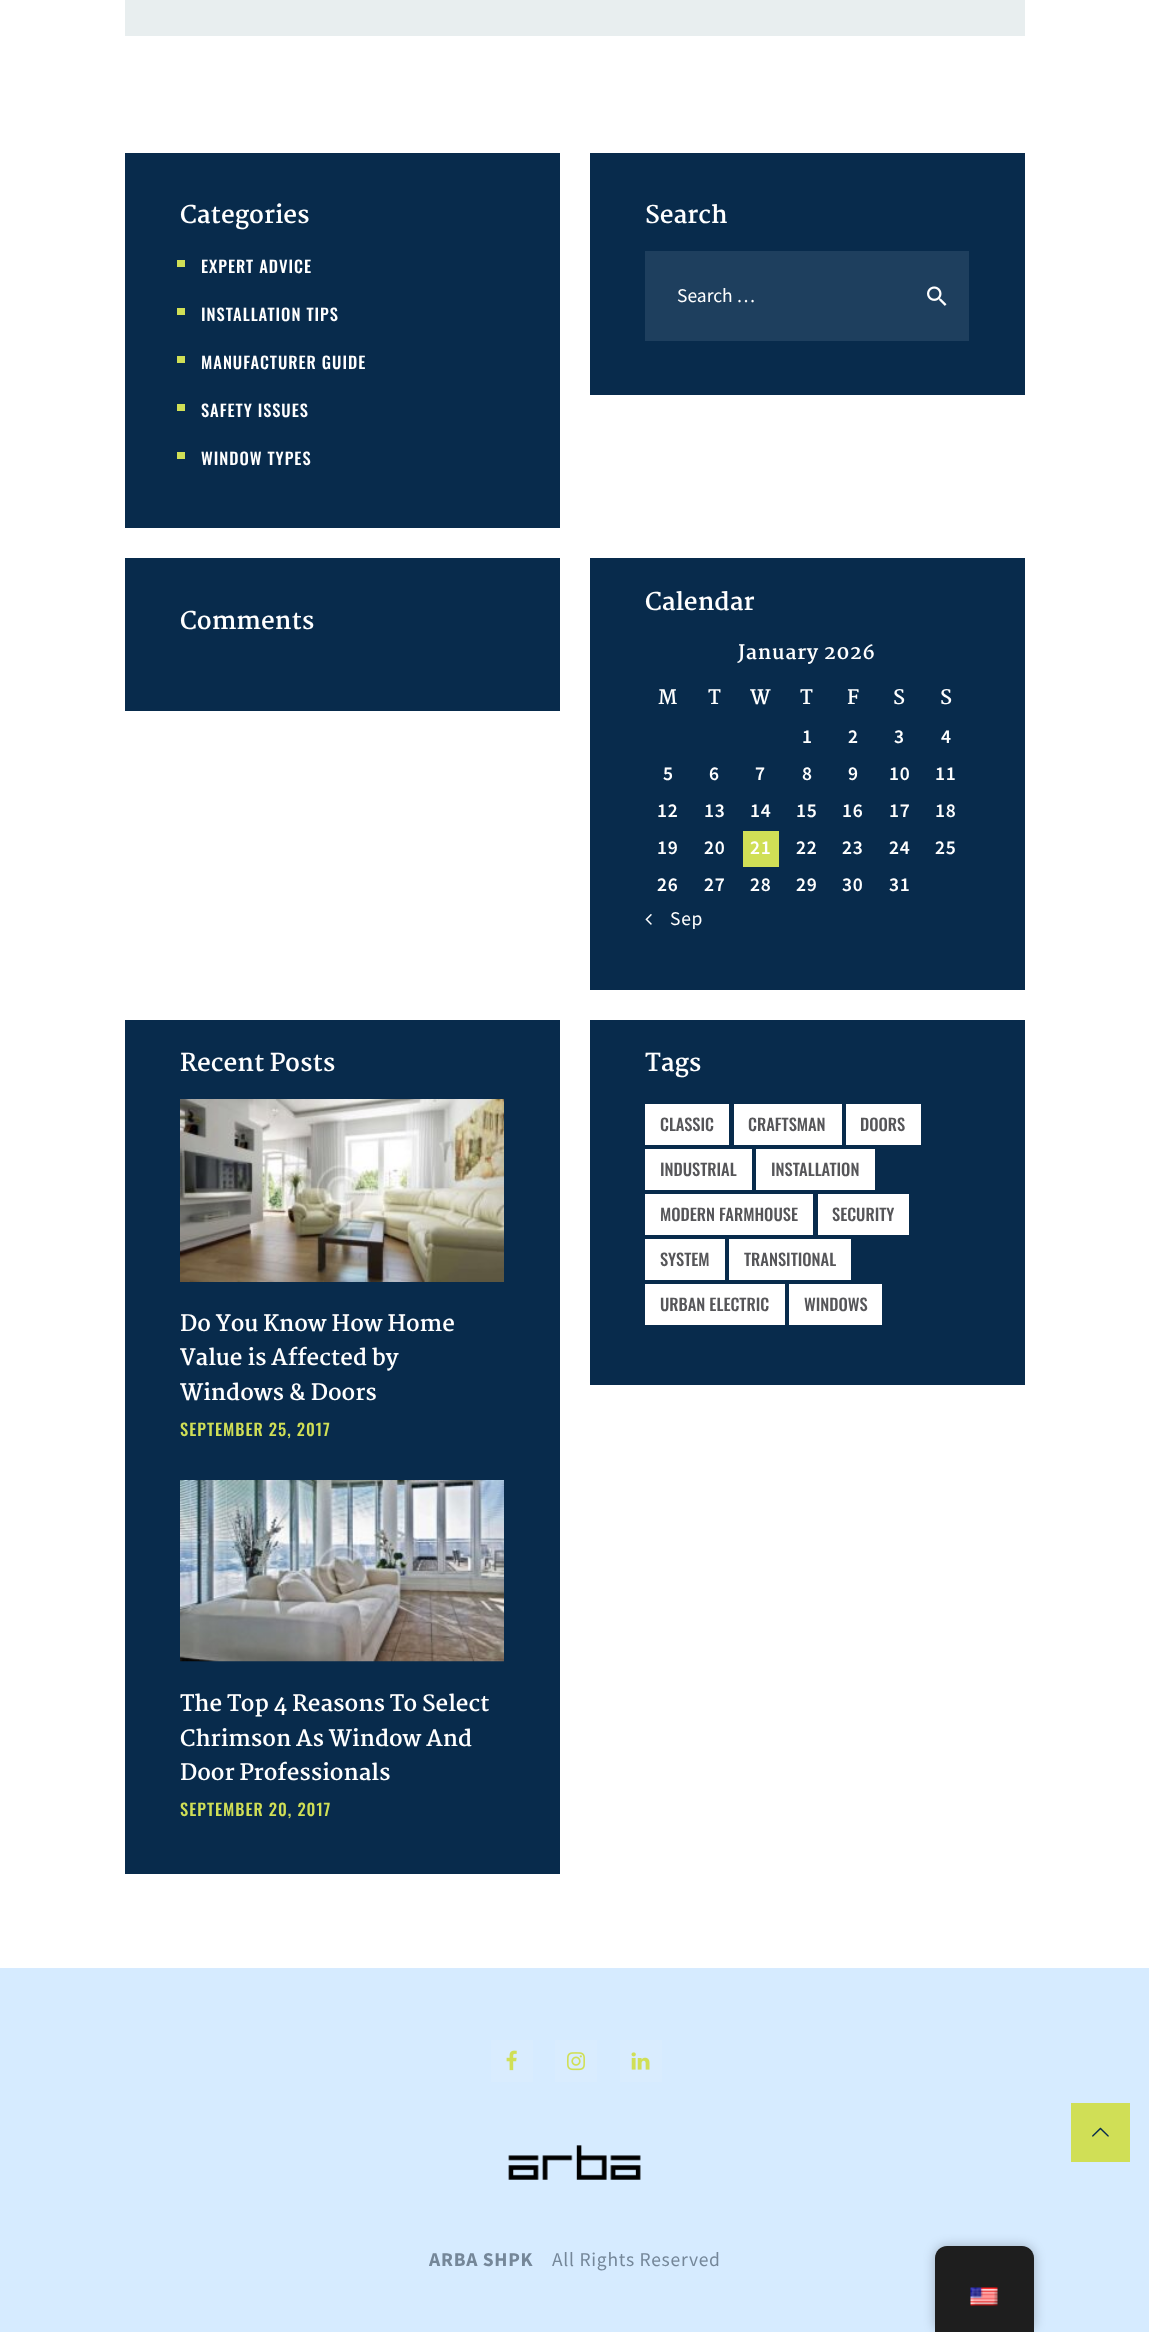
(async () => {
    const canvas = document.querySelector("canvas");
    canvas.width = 1149;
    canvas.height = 2332;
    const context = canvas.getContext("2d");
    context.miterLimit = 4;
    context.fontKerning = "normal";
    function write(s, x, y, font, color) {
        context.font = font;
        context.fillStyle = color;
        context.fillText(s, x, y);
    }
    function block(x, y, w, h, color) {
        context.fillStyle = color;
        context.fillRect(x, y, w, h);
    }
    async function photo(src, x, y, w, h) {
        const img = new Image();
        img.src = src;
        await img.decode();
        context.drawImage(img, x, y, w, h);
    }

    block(0, 0, 1149, 2332, "rgb(255, 255, 255)");
    block(125, 0, 900, 36, "rgb(232, 238, 239)");
    block(125, 153, 435, 375, "rgb(8, 43, 76)");
    write("Categories", 180, 223, "bold 24px Martel", "rgb(255, 255, 255)");
    block(177, 260, 8, 7, "rgb(208, 223, 86)");
    context.letterSpacing = "1px";
    write("EXPERT ADVICE", 201, 273, "500 16.5px Oswald", "rgb(255, 255, 255)");
    block(177, 308, 8, 7, "rgb(208, 223, 86)");
    write("INSTALLATION TIPS", 201, 321, "500 16.5px Oswald", "rgb(255, 255, 255)");
    block(177, 356, 8, 7, "rgb(208, 223, 86)");
    write("MANUFACTURER GUIDE", 201, 369, "500 16.5px Oswald", "rgb(255, 255, 255)");
    block(177, 404, 8, 7, "rgb(208, 223, 86)");
    write("SAFETY ISSUES", 201, 417, "500 16.5px Oswald", "rgb(255, 255, 255)");
    block(177, 452, 8, 7, "rgb(208, 223, 86)");
    write("WINDOW TYPES", 201, 465, "500 16.5px Oswald", "rgb(255, 255, 255)");
    block(590, 153, 435, 242, "rgb(8, 43, 76)");
    context.letterSpacing = "0px";
    write("Search", 645, 223, "bold 24px Martel", "rgb(255, 255, 255)");
    block(645, 251, 324, 90, "rgb(30, 63, 94)");
    write("Search …", 677, 302, "19.5px Source Sans Pro", "rgb(255, 255, 255)");
    await photo("media/1.png", 927, 286, 20, 20);
    block(125, 558, 435, 153, "rgb(8, 43, 76)");
    write("Comments", 180, 629, "bold 24px Martel", "rgb(255, 255, 255)");
    block(590, 558, 435, 432, "rgb(8, 43, 76)");
    write("Calendar", 645, 610, "bold 24px Martel", "rgb(255, 255, 255)");
    context.letterSpacing = "0.75px";
    write("January 2026", 738, 659, "bold 19.5px Martel", "rgb(255, 255, 255)");
    write("M", 658, 704, "bold 19.5px Martel", "rgb(255, 255, 255)");
    write("T", 708, 704, "bold 19.5px Martel", "rgb(255, 255, 255)");
    write("W", 750, 704, "bold 19.5px Martel", "rgb(255, 255, 255)");
    write("T", 800, 704, "bold 19.5px Martel", "rgb(255, 255, 255)");
    write("F", 847, 704, "bold 19.5px Martel", "rgb(255, 255, 255)");
    write("S", 893, 704, "bold 19.5px Martel", "rgb(255, 255, 255)");
    write("S", 940, 704, "bold 19.5px Martel", "rgb(255, 255, 255)");
    write("1", 802, 743, "600 19.5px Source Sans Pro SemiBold", "rgb(255, 255, 255)");
    write("2", 848, 743, "600 19.5px Source Sans Pro SemiBold", "rgb(255, 255, 255)");
    write("3", 894, 743, "600 19.5px Source Sans Pro SemiBold", "rgb(255, 255, 255)");
    write("4", 941, 743, "600 19.5px Source Sans Pro SemiBold", "rgb(255, 255, 255)");
    write("5", 663, 780, "600 19.5px Source Sans Pro SemiBold", "rgb(255, 255, 255)");
    write("6", 709, 780, "600 19.5px Source Sans Pro SemiBold", "rgb(255, 255, 255)");
    write("7", 755, 780, "600 19.5px Source Sans Pro SemiBold", "rgb(255, 255, 255)");
    write("8", 802, 780, "600 19.5px Source Sans Pro SemiBold", "rgb(255, 255, 255)");
    write("9", 848, 780, "600 19.5px Source Sans Pro SemiBold", "rgb(255, 255, 255)");
    write("10", 889, 780, "600 19.5px Source Sans Pro SemiBold", "rgb(255, 255, 255)");
    write("11", 935, 780, "600 19.5px Source Sans Pro SemiBold", "rgb(255, 255, 255)");
    write("12", 657, 817, "600 19.5px Source Sans Pro SemiBold", "rgb(255, 255, 255)");
    write("13", 704, 817, "600 19.5px Source Sans Pro SemiBold", "rgb(255, 255, 255)");
    write("14", 750, 817, "600 19.5px Source Sans Pro SemiBold", "rgb(255, 255, 255)");
    write("15", 796, 817, "600 19.5px Source Sans Pro SemiBold", "rgb(255, 255, 255)");
    write("16", 842, 817, "600 19.5px Source Sans Pro SemiBold", "rgb(255, 255, 255)");
    write("17", 889, 817, "600 19.5px Source Sans Pro SemiBold", "rgb(255, 255, 255)");
    write("18", 935, 817, "600 19.5px Source Sans Pro SemiBold", "rgb(255, 255, 255)");
    write("19", 657, 854, "600 19.5px Source Sans Pro SemiBold", "rgb(255, 255, 255)");
    write("20", 704, 854, "600 19.5px Source Sans Pro SemiBold", "rgb(255, 255, 255)");
    block(743, 831, 36, 36, "rgb(208, 223, 86)");
    write("21", 750, 854, "600 19.5px Source Sans Pro SemiBold", "rgb(255, 255, 255)");
    write("22", 796, 854, "600 19.5px Source Sans Pro SemiBold", "rgb(255, 255, 255)");
    write("23", 842, 854, "600 19.5px Source Sans Pro SemiBold", "rgb(255, 255, 255)");
    write("24", 889, 854, "600 19.5px Source Sans Pro SemiBold", "rgb(255, 255, 255)");
    write("25", 935, 854, "600 19.5px Source Sans Pro SemiBold", "rgb(255, 255, 255)");
    write("26", 657, 891, "600 19.5px Source Sans Pro SemiBold", "rgb(255, 255, 255)");
    write("27", 704, 891, "600 19.5px Source Sans Pro SemiBold", "rgb(255, 255, 255)");
    write("28", 750, 891, "600 19.5px Source Sans Pro SemiBold", "rgb(255, 255, 255)");
    write("29", 796, 891, "600 19.5px Source Sans Pro SemiBold", "rgb(255, 255, 255)");
    write("30", 842, 891, "600 19.5px Source Sans Pro SemiBold", "rgb(255, 255, 255)");
    write("31", 889, 891, "600 19.5px Source Sans Pro SemiBold", "rgb(255, 255, 255)");
    await photo("media/2.png", 645, 914, 7, 11);
    write("Sep", 670, 925, "19.5px Source Sans Pro", "rgb(255, 255, 255)");
    block(125, 1020, 435, 854, "rgb(8, 43, 76)");
    context.letterSpacing = "0px";
    write("Recent Posts", 180, 1071, "bold 24px Martel", "rgb(255, 255, 255)");
    await photo("media/3.png", 180, 1099, 324, 183);
    write("Do You Know How Home", 180, 1331, "bold 22px Martel", "rgb(255, 255, 255)");
    write("Value is Affected by", 180, 1365, "bold 22px Martel", "rgb(255, 255, 255)");
    write("Windows & Doors", 180, 1400, "bold 22px Martel", "rgb(255, 255, 255)");
    context.letterSpacing = "1px";
    write("SEPTEMBER 25, 2017", 180, 1436, "500 16.5px Oswald", "rgb(208, 223, 86)");
    await photo("media/4.png", 180, 1480, 324, 182);
    context.letterSpacing = "0px";
    write("The Top 4 Reasons To Select", 180, 1711, "bold 22px Martel", "rgb(255, 255, 255)");
    write("Chrimson As Window And", 180, 1746, "bold 22px Martel", "rgb(255, 255, 255)");
    write("Door Professionals", 180, 1780, "bold 22px Martel", "rgb(255, 255, 255)");
    context.letterSpacing = "1px";
    write("SEPTEMBER 20, 2017", 180, 1816, "500 16.5px Oswald", "rgb(208, 223, 86)");
    block(590, 1020, 435, 365, "rgb(8, 43, 76)");
    context.letterSpacing = "0px";
    write("Tags", 645, 1071, "bold 24px Martel", "rgb(255, 255, 255)");
    block(645, 1104, 84, 41, "rgb(255, 255, 255)");
    write("CLASSIC", 660, 1131, "500 16.5px Oswald", "rgb(86, 86, 89)");
    block(734, 1104, 108, 41, "rgb(255, 255, 255)");
    write("CRAFTSMAN", 748, 1131, "500 16.5px Oswald", "rgb(86, 86, 89)");
    block(846, 1104, 75, 41, "rgb(255, 255, 255)");
    write("DOORS", 860, 1131, "500 16.5px Oswald", "rgb(86, 86, 89)");
    block(645, 1149, 107, 41, "rgb(255, 255, 255)");
    write("INDUSTRIAL", 660, 1176, "500 16.5px Oswald", "rgb(86, 86, 89)");
    block(756, 1149, 119, 41, "rgb(255, 255, 255)");
    write("INSTALLATION", 771, 1176, "500 16.5px Oswald", "rgb(86, 86, 89)");
    block(645, 1194, 168, 41, "rgb(255, 255, 255)");
    write("MODERN FARMHOUSE", 660, 1221, "500 16.5px Oswald", "rgb(86, 86, 89)");
    block(818, 1194, 91, 41, "rgb(255, 255, 255)");
    write("SECURITY", 832, 1221, "500 16.5px Oswald", "rgb(86, 86, 89)");
    block(645, 1239, 80, 41, "rgb(255, 255, 255)");
    write("SYSTEM", 660, 1266, "500 16.5px Oswald", "rgb(86, 86, 89)");
    block(729, 1239, 122, 41, "rgb(255, 255, 255)");
    write("TRANSITIONAL", 744, 1266, "500 16.5px Oswald", "rgb(86, 86, 89)");
    block(645, 1284, 140, 41, "rgb(255, 255, 255)");
    write("URBAN ELECTRIC", 660, 1311, "500 16.5px Oswald", "rgb(86, 86, 89)");
    block(789, 1284, 93, 41, "rgb(255, 255, 255)");
    write("WINDOWS", 804, 1311, "500 16.5px Oswald", "rgb(86, 86, 89)");
    block(0, 1968, 1149, 364, "rgb(214, 235, 255)");
    block(491, 2040, 42, 42, "rgb(217, 236, 254)");
    await photo("media/5.png", 506, 2050, 11, 21);
    block(555, 2040, 42, 42, "rgb(217, 236, 254)");
    await photo("media/6.png", 567, 2052, 18, 19);
    block(620, 2040, 42, 42, "rgb(217, 236, 254)");
    await photo("media/7.png", 631, 2052, 19, 18);
    await photo("media/8.png", 508, 2145, 133, 35);
    context.letterSpacing = "0.75px";
    write("ARBA SHPK", 429, 2266, "bold 19.5px Source Sans Pro", "rgb(117, 135, 153)");
    write("All Rights Reserved", 552, 2266, "19.5px Source Sans Pro", "rgb(117, 135, 153)");
    block(1071, 2103, 59, 59, "rgb(208, 223, 86)");
    await photo("media/9.png", 1092, 2127, 17, 10);
    context.fillStyle = "rgba(0, 0, 0, 0.25)";
    context.filter = "blur(6px)";
    context.beginPath();
    context.roundRect(935, 2246, 99, 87, 12);
    context.fill();
    context.filter = "none";
    context.fillStyle = "rgb(30, 30, 30)";
    context.beginPath();
    context.moveTo(947, 2246);
    context.lineTo(1022, 2246);
    context.bezierCurveTo(1028.5, 2246, 1034, 2251.5, 1034, 2258);
    context.lineTo(1034, 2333);
    context.lineTo(935, 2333);
    context.lineTo(935, 2258);
    context.bezierCurveTo(935, 2251.5, 940.5, 2246, 947, 2246);
    context.closePath();
    context.fill();
    await photo("media/10.png", 970, 2287, 28, 19);
})();
